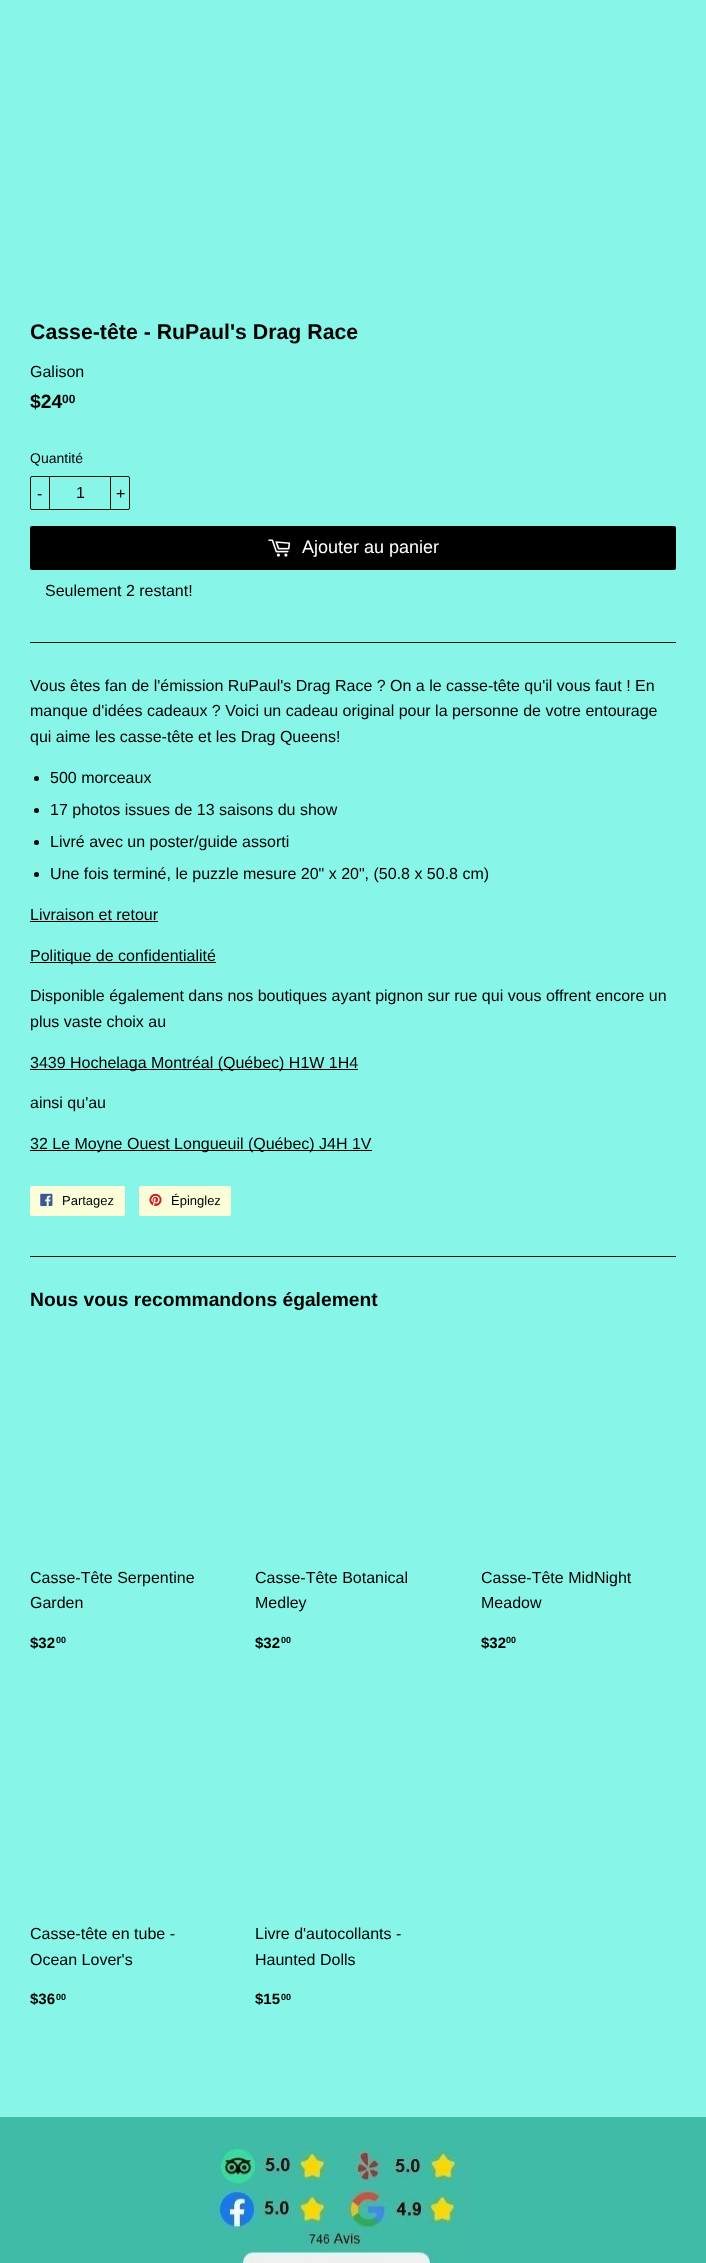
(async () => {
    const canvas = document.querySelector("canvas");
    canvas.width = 706;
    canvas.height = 2263;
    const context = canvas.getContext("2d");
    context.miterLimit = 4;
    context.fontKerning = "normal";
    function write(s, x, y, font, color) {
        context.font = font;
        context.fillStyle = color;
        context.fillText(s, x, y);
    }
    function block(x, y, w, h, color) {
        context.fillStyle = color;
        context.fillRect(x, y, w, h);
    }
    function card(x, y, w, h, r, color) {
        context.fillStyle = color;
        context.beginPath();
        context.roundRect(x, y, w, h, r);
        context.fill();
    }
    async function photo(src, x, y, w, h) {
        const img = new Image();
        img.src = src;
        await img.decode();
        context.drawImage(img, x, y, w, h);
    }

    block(0, 0, 706, 2263, "rgb(135, 246, 232)");
    write("Casse-tête - RuPaul's Drag Race", 30, 339, "bold 21.3px Liberation Sans", "rgb(0, 0, 0)");
    write("Galison", 30, 377, "16px Liberation Sans", "rgb(0, 0, 0)");
    write("$24", 30, 408, "bold 19.25px Liberation Sans", "rgb(0, 0, 0)");
    write("00", 62, 403, "bold 12px Liberation Sans", "rgb(0, 0, 0)");
    write("Quantité", 30, 463, "14px Liberation Sans", "rgb(0, 0, 0)");
    context.beginPath();
    context.roundRect(30.5, 476.5, 99, 33, 1.5);
    context.strokeStyle = "rgb(2, 25, 2)";
    context.stroke();
    block(49, 476, 1, 34, "rgb(2, 25, 2)");
    write("-", 37, 499, "16px Liberation Sans", "rgb(0, 0, 0)");
    write("1", 76, 498, "16px Liberation Sans", "rgb(0, 0, 0)");
    block(110, 476, 1, 34, "rgb(2, 25, 2)");
    write("+", 116, 499, "16px Liberation Sans", "rgb(0, 0, 0)");
    card(30, 526, 646, 44, 2, "rgb(0, 0, 0)");
    await photo("media/1.png", 268, 539, 23, 18);
    write("Ajouter au panier", 302, 553, "18px Liberation Sans", "rgb(255, 255, 255)");
    write("Seulement 2 restant!", 45, 596, "16px Liberation Sans", "rgb(0, 0, 0)");
    block(30, 642, 646, 1, "rgb(2, 25, 2)");
    write("Vous êtes fan de l'émission RuPaul's Drag Race ? On a le casse-tête qu'il vous faut ! En", 30, 691, "16px Liberation Sans", "rgb(0, 0, 0)");
    write("manque d'idées cadeaux ? Voici un cadeau original pour la personne de votre entourage", 30, 716, "16px Liberation Sans", "rgb(0, 0, 0)");
    write("qui aime les casse-tête et les Drag Queens!", 30, 742, "16px Liberation Sans", "rgb(0, 0, 0)");
    context.beginPath();
    context.arc(36.5, 778.5, 2.5, 0, Math.PI * 2);
    context.fill();
    write("500 morceaux", 50, 783, "16px Liberation Sans", "rgb(0, 0, 0)");
    context.beginPath();
    context.arc(36.5, 810.5, 2.5, 0, Math.PI * 2);
    context.fill();
    write("17 photos issues de 13 saisons du show", 50, 815, "16px Liberation Sans", "rgb(0, 0, 0)");
    context.beginPath();
    context.arc(36.5, 842.5, 2.5, 0, Math.PI * 2);
    context.fill();
    write("Livré avec un poster/guide assorti", 50, 847, "16px Liberation Sans", "rgb(0, 0, 0)");
    context.beginPath();
    context.arc(36.5, 874.5, 2.5, 0, Math.PI * 2);
    context.fill();
    write("Une fois terminé, le puzzle mesure 20\" x 20\", (50.8 x 50.8 cm)", 50, 879, "16px Liberation Sans", "rgb(0, 0, 0)");
    write("Livraison et retour", 30, 920, "16px Liberation Sans", "rgb(0, 0, 0)");
    block(30, 921, 128, 1, "rgb(0, 0, 0)");
    block(30, 962, 186, 1, "rgb(0, 0, 0)");
    write("Politique de confidentialité", 30, 961, "16px Liberation Sans", "rgb(0, 0, 0)");
    write("Disponible également dans nos boutiques ayant pignon sur rue qui vous offrent encore un", 30, 1001, "16px Liberation Sans", "rgb(0, 0, 0)");
    write("plus vaste choix au", 30, 1027, "16px Liberation Sans", "rgb(0, 0, 0)");
    block(30, 1069, 328, 1, "rgb(0, 0, 0)");
    write("3439 Hochelaga Montréal (Québec) H1W 1H4", 30, 1068, "16px Liberation Sans", "rgb(0, 0, 0)");
    write("ainsi qu'au", 30, 1108, "16px Liberation Sans", "rgb(0, 0, 0)");
    block(30, 1150, 342, 1, "rgb(0, 0, 0)");
    write("32 Le Moyne Ouest Longueuil (Québec) J4H 1V", 30, 1149, "16px Liberation Sans", "rgb(0, 0, 0)");
    card(30, 1186, 95, 30, 2, "rgb(252, 254, 218)");
    await photo("media/2.png", 40, 1193, 13, 13);
    write("Partagez", 62, 1205, "13px Liberation Sans", "rgb(0, 0, 0)");
    card(139, 1186, 92, 30, 2, "rgb(252, 254, 218)");
    await photo("media/3.png", 149, 1193, 13, 13);
    write("Épinglez", 171, 1205, "13px Liberation Sans", "rgb(0, 0, 0)");
    block(30, 1256, 646, 1, "rgb(2, 25, 2)");
    write("Nous vous recommandons également", 30, 1306, "bold 19.25px Liberation Sans", "rgb(0, 0, 0)");
    write("Casse-Tête Serpentine", 30, 1583, "16px Liberation Sans", "rgb(0, 0, 0)");
    write("Garden", 30, 1608, "16px Liberation Sans", "rgb(0, 0, 0)");
    write("$32", 30, 1648, "bold 15px Liberation Sans", "rgb(0, 0, 0)");
    write("00", 56, 1643, "bold 9px Liberation Sans", "rgb(0, 0, 0)");
    write("Casse-Tête Botanical", 255, 1583, "16px Liberation Sans", "rgb(0, 0, 0)");
    write("Medley", 255, 1608, "16px Liberation Sans", "rgb(0, 0, 0)");
    write("$32", 255, 1648, "bold 15px Liberation Sans", "rgb(0, 0, 0)");
    write("00", 281, 1643, "bold 9px Liberation Sans", "rgb(0, 0, 0)");
    write("Casse-Tête MidNight", 481, 1583, "16px Liberation Sans", "rgb(0, 0, 0)");
    write("Meadow", 481, 1608, "16px Liberation Sans", "rgb(0, 0, 0)");
    write("$32", 481, 1648, "bold 15px Liberation Sans", "rgb(0, 0, 0)");
    write("00", 506, 1643, "bold 9px Liberation Sans", "rgb(0, 0, 0)");
    write("Casse-tête en tube -", 30, 1939, "16px Liberation Sans", "rgb(0, 0, 0)");
    write("Ocean Lover's", 30, 1965, "16px Liberation Sans", "rgb(0, 0, 0)");
    write("$36", 30, 2004, "bold 15px Liberation Sans", "rgb(0, 0, 0)");
    write("00", 56, 2000, "bold 9px Liberation Sans", "rgb(0, 0, 0)");
    write("Livre d'autocollants -", 255, 1939, "16px Liberation Sans", "rgb(0, 0, 0)");
    write("Haunted Dolls", 255, 1965, "16px Liberation Sans", "rgb(0, 0, 0)");
    write("$15", 255, 2004, "bold 15px Liberation Sans", "rgb(0, 0, 0)");
    write("00", 281, 2000, "bold 9px Liberation Sans", "rgb(0, 0, 0)");
    block(0, 2117, 706, 146, "rgb(63, 187, 168)");
    await photo("media/4.png", 206, 2147, 263, 116);
})();
